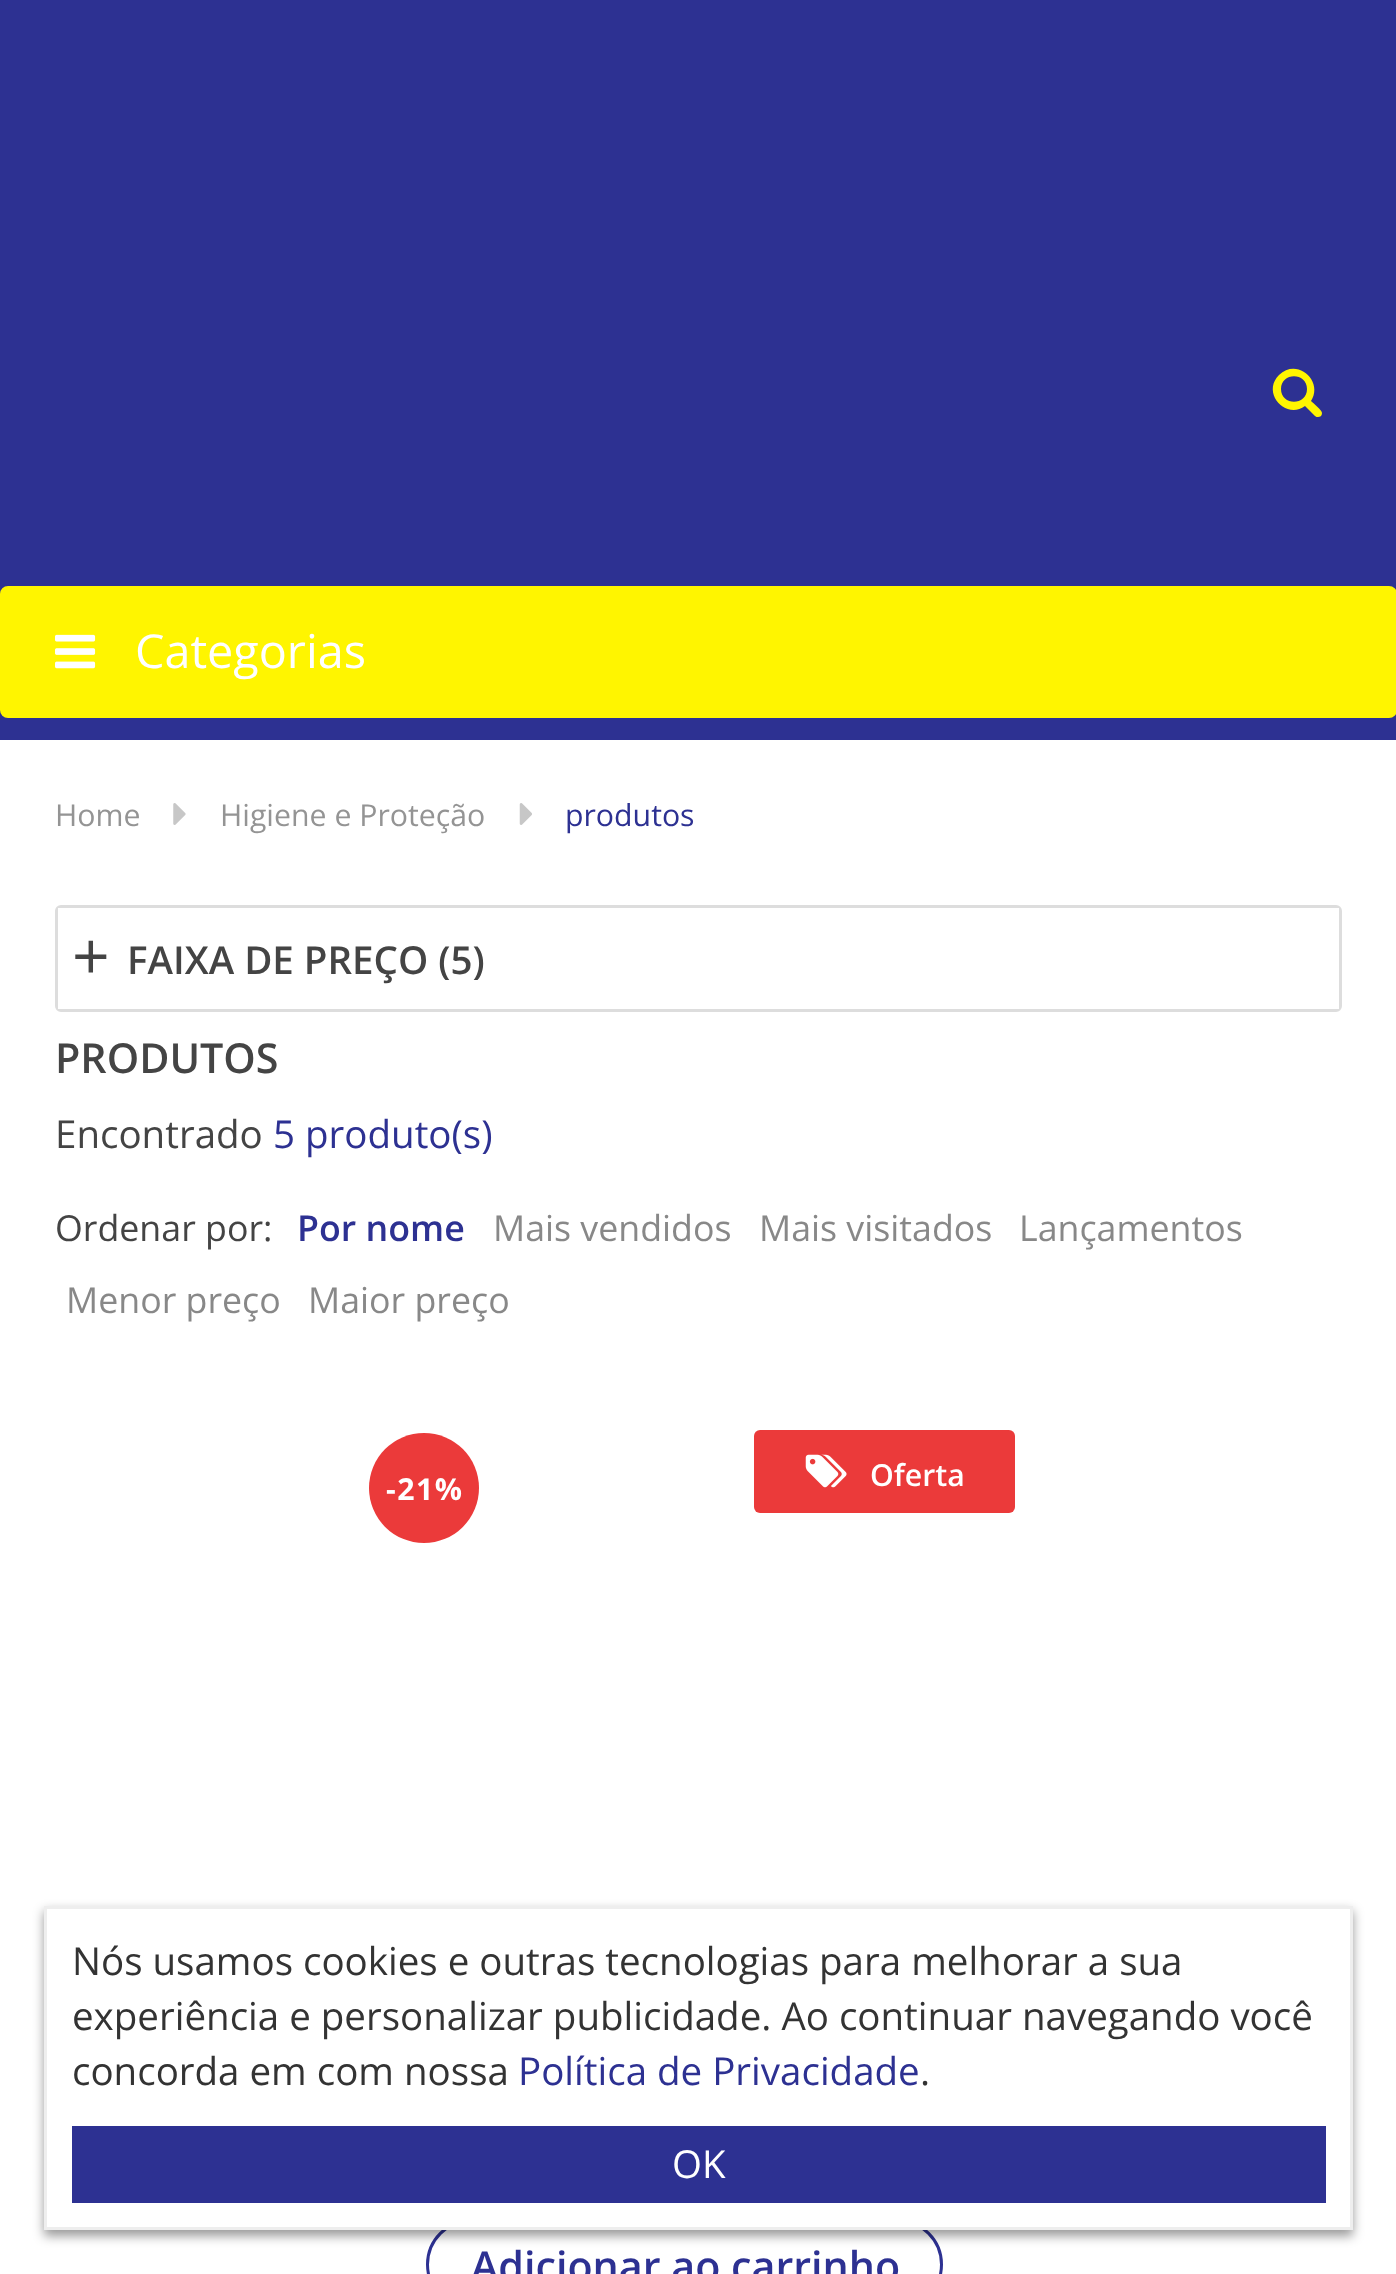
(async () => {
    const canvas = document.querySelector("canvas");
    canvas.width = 1396;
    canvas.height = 2274;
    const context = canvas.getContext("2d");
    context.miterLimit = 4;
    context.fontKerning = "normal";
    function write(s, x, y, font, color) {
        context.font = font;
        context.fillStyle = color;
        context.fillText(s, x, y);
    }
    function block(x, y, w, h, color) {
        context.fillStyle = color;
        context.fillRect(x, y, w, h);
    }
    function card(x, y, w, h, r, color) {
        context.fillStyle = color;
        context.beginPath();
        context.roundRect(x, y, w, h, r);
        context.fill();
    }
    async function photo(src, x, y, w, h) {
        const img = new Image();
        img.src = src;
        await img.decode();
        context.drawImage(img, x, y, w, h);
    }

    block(0, 0, 1396, 2274, "rgb(255, 255, 255)");
    block(0, 0, 1396, 740, "rgb(45, 49, 146)");
    context.fillStyle = "rgb(255, 245, 0)";
    context.beginPath();
    context.moveTo(1307, 389);
    context.bezierCurveTo(1307, 406, 1281, 406, 1281, 389);
    context.bezierCurveTo(1281, 372, 1307, 372, 1307, 389);
    context.closePath();
    context.moveTo(1322, 413);
    context.bezierCurveTo(1322, 410, 1313, 403, 1311, 401);
    context.bezierCurveTo(1324, 381, 1297, 357, 1279, 375);
    context.bezierCurveTo(1261, 393, 1286, 420, 1305, 406);
    context.lineTo(1315, 416);
    context.bezierCurveTo(1316, 417, 1317, 417, 1318, 417);
    context.bezierCurveTo(1320, 417, 1322, 416, 1322, 413);
    context.closePath();
    context.fill();
    card(0, 586, 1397, 132, 8, "rgb(255, 245, 0)");
    await photo("media/1.png", 55, 634, 41, 35);
    write("Categorias", 135, 668, "46.75px Open Sans", "rgb(255, 255, 255)");
    write("Home", 55, 826, "30.25px Open Sans", "rgb(148, 148, 148)");
    await photo("media/2.png", 173, 803, 13, 22);
    write("Higiene e Proteção", 220, 826, "30.25px Open Sans", "rgb(148, 148, 148)");
    await photo("media/3.png", 519, 803, 13, 22);
    write("produtos", 565, 826, "30.25px Open Sans", "rgb(45, 49, 146)");
    context.beginPath();
    context.roundRect(56.5, 906.5, 1284, 104, 4.5);
    context.strokeStyle = "rgb(221, 221, 221)";
    context.lineWidth = 3;
    context.stroke();
    block(58, 908, 1281, 101, "rgb(255, 255, 255)");
    write("+", 72, 980, "66px Open Sans", "rgb(68, 68, 68)");
    write("FAIXA DE PREÇO (5)", 127, 974, "600 38.5px Open Sans", "rgb(68, 68, 68)");
    write("PRODUTOS", 55, 1073, "600 41.25px Open Sans", "rgb(68, 68, 68)");
    write("Encontrado", 55, 1148, "38.5px Open Sans", "rgb(68, 68, 68)");
    write("5 produto(s)", 273, 1148, "38.5px Open Sans", "rgb(45, 49, 146)");
    write("Ordenar por:", 55, 1241, "35.75px Open Sans", "rgb(68, 68, 68)");
    write("Por nome", 297, 1241, "600 35.75px Open Sans", "rgb(45, 49, 146)");
    write("Mais vendidos", 493, 1241, "35.75px Open Sans", "rgb(136, 136, 136)");
    write("Mais visitados", 759, 1241, "35.75px Open Sans", "rgb(136, 136, 136)");
    write("Lançamentos", 1019, 1241, "35.75px Open Sans", "rgb(136, 136, 136)");
    write("Menor preço", 66, 1313, "35.75px Open Sans", "rgb(136, 136, 136)");
    write("Maior preço", 308, 1313, "35.75px Open Sans", "rgb(136, 136, 136)");
    card(754, 1430, 261, 83, 6, "rgb(235, 58, 58)");
    await photo("media/4.png", 805, 1454, 42, 34);
    write("Oferta", 870, 1486, "600 30.25px Open Sans", "rgb(255, 255, 255)");
    context.fillStyle = "rgb(235, 58, 58)";
    context.beginPath();
    context.arc(424, 1488, 55, 0, Math.PI * 2);
    context.fill();
    context.letterSpacing = "1.5px";
    write("-21%", 386, 1500, "bold 30.25px Open Sans", "rgb(255, 255, 255)");
    context.beginPath();
    context.roundRect(427.5, 2220.5, 514, 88, 44);
    context.strokeStyle = "rgb(45, 49, 146)";
    context.stroke();
    context.letterSpacing = "0px";
    write("Adicionar ao carrinho", 471, 2281, "600 41.25px Open Sans", "rgb(45, 49, 146)");
    context.fillStyle = "rgba(0, 0, 0, 0.4)";
    context.filter = "blur(5.5px)";
    context.beginPath();
    context.rect(44, 1911, 1309, 325);
    context.fill();
    context.filter = "none";
    context.fillStyle = "rgb(255, 255, 255)";
    context.beginPath();
    context.rect(45.5, 1907.5, 1306, 321);
    context.fill();
    context.strokeStyle = "rgb(238, 238, 238)";
    context.stroke();
    write("Nós usamos cookies e outras tecnologias para melhorar a sua", 72, 1975, "38.5px Open Sans", "rgb(51, 51, 51)");
    write("experiência e personalizar publicidade. Ao continuar navegando você", 72, 2030, "38.5px Open Sans", "rgb(51, 51, 51)");
    write("concorda em com nossa", 72, 2085, "38.5px Open Sans", "rgb(51, 51, 51)");
    write("Política de Privacidade", 518, 2085, "38.5px Open Sans", "rgb(45, 49, 146)");
    write(".", 920, 2085, "38.5px Open Sans", "rgb(51, 51, 51)");
    block(72, 2126, 1254, 77, "rgb(45, 49, 146)");
    write("OK", 672, 2178, "38.5px Open Sans", "rgb(255, 255, 255)");
})();
